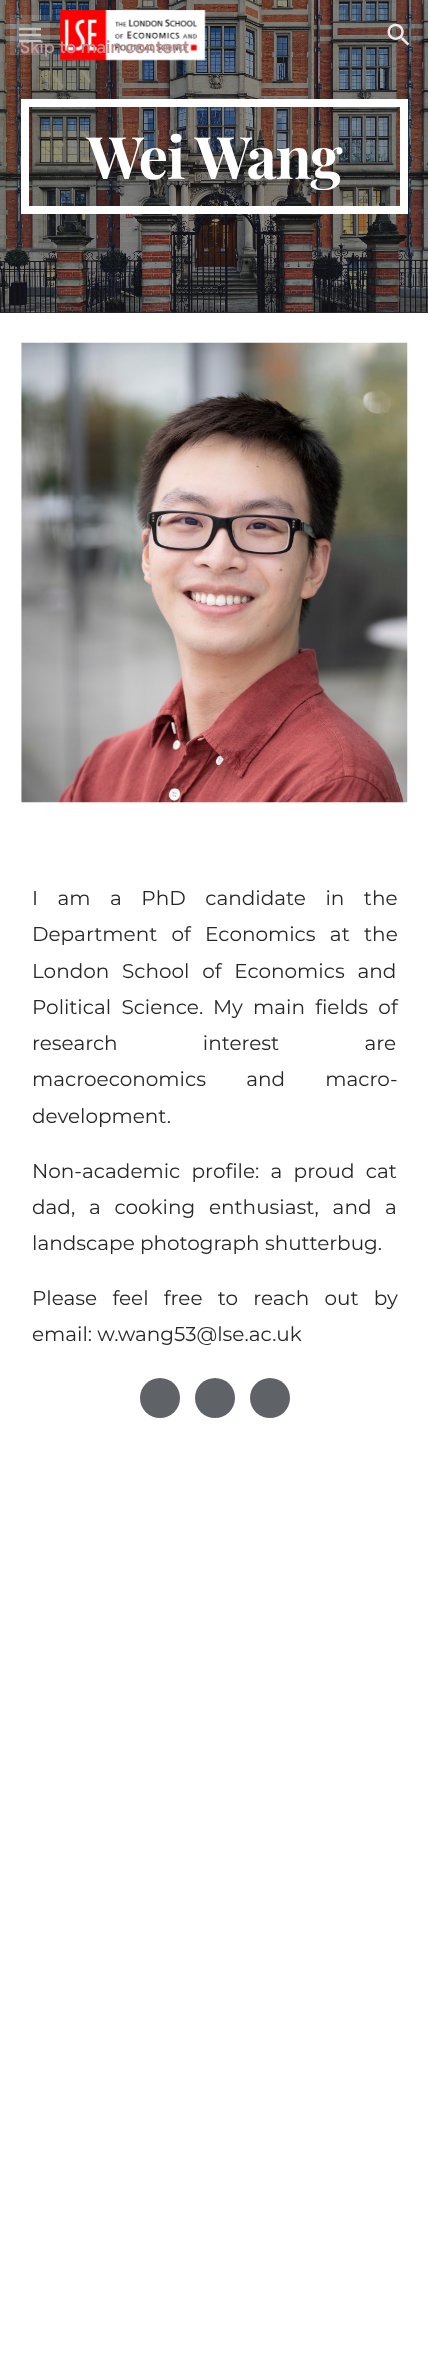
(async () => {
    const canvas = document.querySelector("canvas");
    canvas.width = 428;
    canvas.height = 2379;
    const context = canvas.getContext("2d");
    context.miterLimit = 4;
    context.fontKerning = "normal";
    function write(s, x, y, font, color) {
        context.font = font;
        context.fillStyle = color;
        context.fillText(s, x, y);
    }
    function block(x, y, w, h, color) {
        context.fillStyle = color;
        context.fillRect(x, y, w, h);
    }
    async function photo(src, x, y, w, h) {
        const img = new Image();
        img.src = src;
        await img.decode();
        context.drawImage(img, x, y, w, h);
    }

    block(0, 0, 428, 2379, "rgb(255, 255, 255)");
    block(0, 312, 428, 1, "rgb(41, 41, 42)");
    await photo("media/3.png", 0, 0, 428, 313);
    await photo("media/1.png", 60, 10, 146, 51);
    context.letterSpacing = "0.2px";
    write("Skip to main content", 20, 53, "500 17.5px Google Sans", "rgb(192, 139, 139)");
    context.beginPath();
    context.moveTo(19, 29);
    context.lineTo(41, 29);
    context.moveTo(19, 35);
    context.lineTo(41, 35);
    context.moveTo(19, 41);
    context.lineTo(41, 41);
    context.strokeStyle = "rgb(192, 189, 184)";
    context.lineWidth = 2.5;
    context.stroke();
    block(10, 15, 40, 40, "rgba(255, 255, 255, 0.12)");
    await photo("media/2.png", 387, 23, 23, 23);
    context.strokeStyle = "rgb(255, 255, 255)";
    context.lineWidth = 8;
    context.strokeRect(25, 103, 379, 107);
    context.letterSpacing = "-1px";
    write("Wei Wang", 87, 179, "bold 58.5px Playfair Display", "rgb(255, 255, 255)");
    await photo("media/4.png", 21, 342, 387, 461);
    context.letterSpacing = "0px";
    context.wordSpacing = "14.25px";
    write("I am a PhD candidate in the", 32, 905, "20px Montserrat", "rgb(39, 39, 39)");
    context.wordSpacing = "9px";
    write("Department of Economics at the", 32, 941, "20px Montserrat", "rgb(39, 39, 39)");
    context.wordSpacing = "7.5px";
    write("London School of Economics and", 32, 978, "20px Montserrat", "rgb(39, 39, 39)");
    context.wordSpacing = "5px";
    write("Political Science.", 32, 1014, "20px Montserrat", "rgb(39, 39, 39)");
    context.wordSpacing = "0px";
    write("My", 213, 1014, "20px Montserrat", "rgb(39, 39, 39)");
    context.wordSpacing = "5px";
    write("main fields of", 253, 1014, "20px Montserrat", "rgb(39, 39, 39)");
    context.wordSpacing = "80px";
    write("research interest are", 32, 1050, "20px Montserrat", "rgb(39, 39, 39)");
    context.wordSpacing = "35px";
    write("macroeconomics and macro-", 32, 1086, "20px Montserrat", "rgb(39, 39, 39)");
    context.wordSpacing = "0px";
    write("development.", 32, 1123, "20px Montserrat", "rgb(39, 39, 39)");
    context.wordSpacing = "6px";
    write("Non-academic profile: a proud cat", 32, 1178, "20px Montserrat", "rgb(39, 39, 39)");
    context.wordSpacing = "8.5px";
    write("dad, a cooking enthusiast, and", 32, 1214, "20px Montserrat", "rgb(39, 39, 39)");
    context.wordSpacing = "0px";
    write("a", 385, 1214, "20px Montserrat", "rgb(39, 39, 39)");
    write("landscape photograph shutterbug.", 32, 1250, "20px Montserrat", "rgb(39, 39, 39)");
    context.wordSpacing = "10px";
    write("Please feel free to reach out by", 32, 1305, "20px Montserrat", "rgb(39, 39, 39)");
    context.wordSpacing = "0px";
    write("email: w.wang53@lse.ac.uk", 32, 1341, "20px Montserrat", "rgb(39, 39, 39)");
    context.fillStyle = "rgb(95, 99, 104)";
    context.beginPath();
    context.arc(160, 1398, 20, 0, Math.PI * 2);
    context.fill();
    context.beginPath();
    context.arc(215, 1398, 20, 0, Math.PI * 2);
    context.fill();
    context.beginPath();
    context.arc(270, 1398, 20, 0, Math.PI * 2);
    context.fill();
})();
